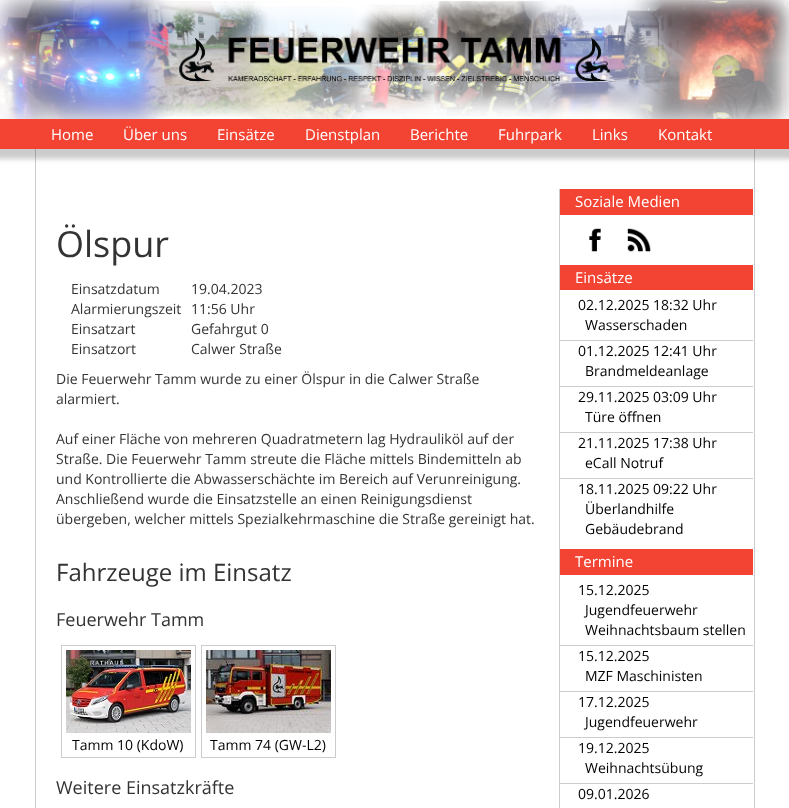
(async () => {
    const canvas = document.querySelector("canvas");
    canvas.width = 789;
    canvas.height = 808;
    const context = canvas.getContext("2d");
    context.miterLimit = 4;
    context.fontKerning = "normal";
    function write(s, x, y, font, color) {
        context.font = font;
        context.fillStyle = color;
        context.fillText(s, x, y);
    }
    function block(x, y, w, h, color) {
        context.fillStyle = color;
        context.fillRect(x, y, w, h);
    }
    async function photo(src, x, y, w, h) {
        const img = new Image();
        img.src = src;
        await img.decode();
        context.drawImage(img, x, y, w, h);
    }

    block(0, 0, 789, 808, "rgb(255, 255, 255)");
    await photo("media/1.png", 0, 0, 789, 119);
    block(754, 149, 1, 659, "rgb(204, 204, 204)");
    block(35, 149, 1, 659, "rgb(204, 204, 204)");
    context.fillStyle = "rgba(0, 0, 0, 0.2)";
    context.filter = "blur(2.5px)";
    context.beginPath();
    context.rect(-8, 129, 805, 30);
    context.fill();
    context.filter = "none";
    block(0, 119, 789, 30, "rgb(242, 67, 51)");
    write("Home", 51, 140, "15px Open Sans", "rgb(255, 255, 255)");
    write("Über uns", 123, 140, "15px Open Sans", "rgb(255, 255, 255)");
    write("Einsätze", 217, 140, "15px Open Sans", "rgb(255, 255, 255)");
    write("Dienstplan", 305, 140, "15px Open Sans", "rgb(255, 255, 255)");
    write("Berichte", 410, 140, "15px Open Sans", "rgb(255, 255, 255)");
    write("Fuhrpark", 498, 140, "15px Open Sans", "rgb(255, 255, 255)");
    write("Links", 592, 140, "15px Open Sans", "rgb(255, 255, 255)");
    write("Kontakt", 658, 140, "15px Open Sans", "rgb(255, 255, 255)");
    write("Ölspur", 56, 257, "36px Open Sans", "rgb(51, 51, 51)");
    write("Einsatzdatum", 71, 294, "14px Open Sans", "rgb(51, 51, 51)");
    write("19.04.2023", 191, 294, "14px Open Sans", "rgb(51, 51, 51)");
    write("Alarmierungszeit", 71, 314, "14px Open Sans", "rgb(51, 51, 51)");
    write("11:56 Uhr", 191, 314, "14px Open Sans", "rgb(51, 51, 51)");
    write("Einsatzart", 71, 334, "14px Open Sans", "rgb(51, 51, 51)");
    write("Gefahrgut 0", 191, 334, "14px Open Sans", "rgb(51, 51, 51)");
    write("Einsatzort", 71, 354, "14px Open Sans", "rgb(51, 51, 51)");
    write("Calwer Straße", 191, 354, "14px Open Sans", "rgb(51, 51, 51)");
    write("Die Feuerwehr Tamm wurde zu einer Ölspur in die Calwer Straße", 56, 384, "14px Open Sans", "rgb(51, 51, 51)");
    write("alarmiert.", 56, 404, "14px Open Sans", "rgb(51, 51, 51)");
    write("Auf einer Fläche von mehreren Quadratmetern lag Hydrauliköl auf der", 56, 444, "14px Open Sans", "rgb(51, 51, 51)");
    write("Straße. Die Feuerwehr Tamm streute die Fläche mittels Bindemitteln ab", 56, 464, "14px Open Sans", "rgb(51, 51, 51)");
    write("und Kontrollierte die Abwasserschächte im Bereich auf Verunreinigung.", 56, 484, "14px Open Sans", "rgb(51, 51, 51)");
    write("Anschließend wurde die Einsatzstelle an einen Reinigungsdienst", 56, 504, "14px Open Sans", "rgb(51, 51, 51)");
    write("übergeben, welcher mittels Spezialkehrmaschine die Straße gereinigt hat.", 56, 524, "14px Open Sans", "rgb(51, 51, 51)");
    write("Fahrzeuge im Einsatz", 56, 581, "24px Open Sans", "rgb(51, 51, 51)");
    write("Feuerwehr Tamm", 56, 626, "18px Open Sans", "rgb(51, 51, 51)");
    context.strokeStyle = "rgb(204, 204, 204)";
    context.strokeRect(61.5, 645.5, 134, 112);
    await photo("media/2.png", 66, 650, 125, 83);
    write("Tamm 10 (KdoW)", 72, 750, "14px Open Sans", "rgb(0, 0, 0)");
    context.strokeRect(201.5, 645.5, 134, 112);
    await photo("media/3.png", 206, 650, 125, 83);
    write("Tamm 74 (GW-L2)", 210, 750, "14px Open Sans", "rgb(0, 0, 0)");
    write("Weitere Einsatzkräfte", 56, 794, "18px Open Sans", "rgb(51, 51, 51)");
    block(559, 189, 1, 619, "rgb(204, 204, 204)");
    block(560, 189, 193, 26, "rgb(242, 67, 51)");
    write("Soziale Medien", 575, 207, "15px Open Sans", "rgb(255, 255, 255)");
    await photo("media/4.png", 589, 228, 12, 24);
    await photo("media/5.png", 627, 228, 24, 24);
    block(560, 265, 193, 25, "rgb(242, 67, 51)");
    write("Einsätze", 575, 283, "15px Open Sans", "rgb(255, 255, 255)");
    block(560, 340, 193, 1, "rgb(204, 204, 204)");
    write("02.12.2025 18:32 Uhr", 578, 310, "14px Open Sans", "rgb(0, 0, 0)");
    write("Wasserschaden", 585, 330, "14px Open Sans", "rgb(0, 0, 0)");
    block(560, 386, 193, 1, "rgb(204, 204, 204)");
    write("01.12.2025 12:41 Uhr", 578, 356, "14px Open Sans", "rgb(0, 0, 0)");
    write("Brandmeldeanlage", 585, 376, "14px Open Sans", "rgb(0, 0, 0)");
    block(560, 432, 193, 1, "rgb(204, 204, 204)");
    write("29.11.2025 03:09 Uhr", 578, 402, "14px Open Sans", "rgb(0, 0, 0)");
    write("Türe öffnen", 585, 422, "14px Open Sans", "rgb(0, 0, 0)");
    block(560, 478, 193, 1, "rgb(204, 204, 204)");
    write("21.11.2025 17:38 Uhr", 578, 448, "14px Open Sans", "rgb(0, 0, 0)");
    write("eCall Notruf", 585, 468, "14px Open Sans", "rgb(0, 0, 0)");
    write("18.11.2025 09:22 Uhr", 578, 494, "14px Open Sans", "rgb(0, 0, 0)");
    write("Überlandhilfe", 585, 514, "14px Open Sans", "rgb(0, 0, 0)");
    write("Gebäudebrand", 585, 534, "14px Open Sans", "rgb(0, 0, 0)");
    block(560, 549, 193, 26, "rgb(242, 67, 51)");
    write("Termine", 575, 567, "15px Open Sans", "rgb(255, 255, 255)");
    block(560, 645, 193, 1, "rgb(204, 204, 204)");
    write("15.12.2025", 578, 595, "14px Open Sans", "rgb(0, 0, 0)");
    write("Jugendfeuerwehr", 585, 615, "14px Open Sans", "rgb(0, 0, 0)");
    write("Weihnachtsbaum stellen", 585, 635, "14px Open Sans", "rgb(0, 0, 0)");
    block(560, 691, 193, 1, "rgb(204, 204, 204)");
    write("15.12.2025", 578, 661, "14px Open Sans", "rgb(0, 0, 0)");
    write("MZF Maschinisten", 585, 681, "14px Open Sans", "rgb(0, 0, 0)");
    block(560, 737, 193, 1, "rgb(204, 204, 204)");
    write("17.12.2025", 578, 707, "14px Open Sans", "rgb(0, 0, 0)");
    write("Jugendfeuerwehr", 585, 727, "14px Open Sans", "rgb(0, 0, 0)");
    block(560, 783, 193, 1, "rgb(204, 204, 204)");
    write("19.12.2025", 578, 753, "14px Open Sans", "rgb(0, 0, 0)");
    write("Weihnachtsübung", 585, 773, "14px Open Sans", "rgb(0, 0, 0)");
    write("09.01.2026", 578, 799, "14px Open Sans", "rgb(0, 0, 0)");
})();
